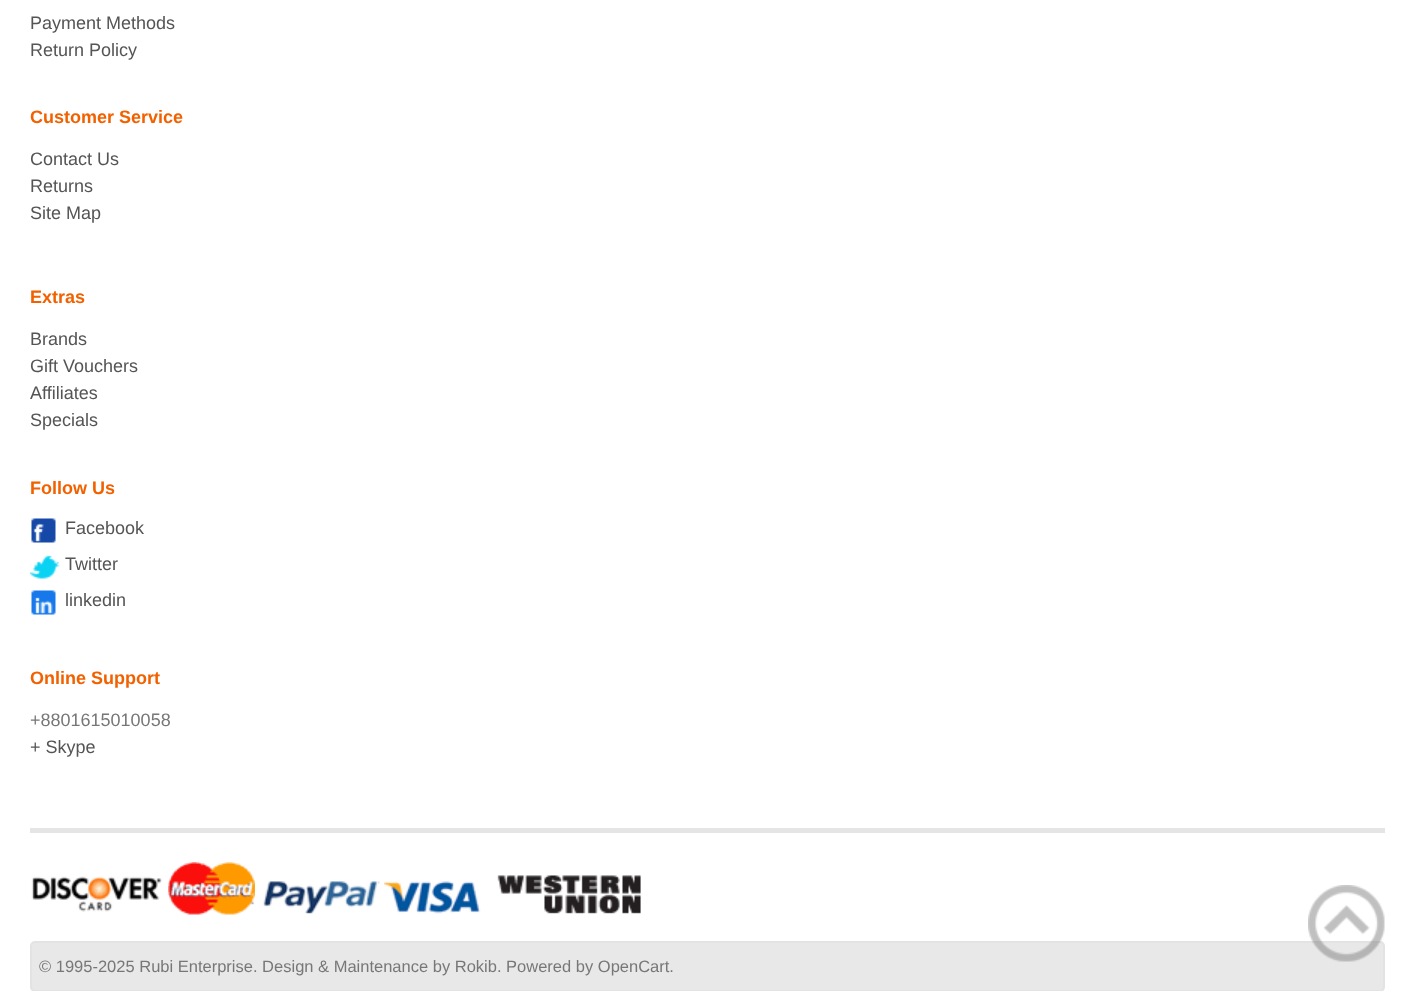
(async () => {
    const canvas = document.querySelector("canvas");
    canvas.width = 1414;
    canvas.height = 991;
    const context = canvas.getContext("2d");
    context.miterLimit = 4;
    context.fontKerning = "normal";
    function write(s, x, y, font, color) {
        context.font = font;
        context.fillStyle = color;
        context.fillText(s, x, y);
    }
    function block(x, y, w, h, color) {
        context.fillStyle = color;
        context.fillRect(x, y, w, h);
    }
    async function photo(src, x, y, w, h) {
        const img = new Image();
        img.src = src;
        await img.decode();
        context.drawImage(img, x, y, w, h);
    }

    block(0, 0, 1414, 991, "rgb(255, 255, 255)");
    write("Payment Methods", 30, 29, "18px Liberation Sans", "rgb(85, 85, 85)");
    write("Return Policy", 30, 56, "18px Liberation Sans", "rgb(85, 85, 85)");
    write("Customer Service", 30, 123, "bold 18px Liberation Sans", "rgb(242, 97, 0)");
    write("Contact Us", 30, 165, "18px Liberation Sans", "rgb(85, 85, 85)");
    write("Returns", 30, 192, "18px Liberation Sans", "rgb(85, 85, 85)");
    write("Site Map", 30, 219, "18px Liberation Sans", "rgb(85, 85, 85)");
    write("Extras", 30, 303, "bold 18px Liberation Sans", "rgb(242, 97, 0)");
    write("Brands", 30, 345, "18px Liberation Sans", "rgb(85, 85, 85)");
    write("Gift Vouchers", 30, 372, "18px Liberation Sans", "rgb(85, 85, 85)");
    write("Affiliates", 30, 399, "18px Liberation Sans", "rgb(85, 85, 85)");
    write("Specials", 30, 426, "18px Liberation Sans", "rgb(85, 85, 85)");
    write("Follow Us", 30, 494, "bold 18px Liberation Sans", "rgb(242, 97, 0)");
    await photo("media/1.png", 31, 518, 25, 25);
    write("Facebook", 65, 534, "18px Liberation Sans", "rgb(85, 85, 85)");
    await photo("media/2.png", 30, 555, 30, 24);
    write("Twitter", 65, 570, "18px Liberation Sans", "rgb(85, 85, 85)");
    await photo("media/3.png", 31, 590, 25, 25);
    write("linkedin", 65, 606, "18px Liberation Sans", "rgb(85, 85, 85)");
    write("Online Support", 30, 684, "bold 18px Liberation Sans", "rgb(242, 97, 0)");
    write("+8801615010058", 30, 726, "18px Liberation Sans", "rgb(119, 119, 119)");
    write("+ Skype", 30, 753, "18px Liberation Sans", "rgb(85, 85, 85)");
    block(30, 828, 1355, 5, "rgb(229, 229, 229)");
    await photo("media/4.png", 31, 876, 132, 36);
    await photo("media/5.png", 168, 862, 87, 53);
    await photo("media/6.png", 263, 881, 117, 33);
    await photo("media/7.png", 384, 881, 97, 33);
    await photo("media/8.png", 497, 875, 144, 39);
    context.fillStyle = "rgb(232, 232, 232)";
    context.beginPath();
    context.roundRect(31, 942, 1353, 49, 4);
    context.fill();
    context.strokeStyle = "rgb(227, 227, 227)";
    context.lineWidth = 2;
    context.stroke();
    write("© 1995-2025 Rubi Enterprise. Design & Maintenance by Rokib. Powered by OpenCart.", 39, 972, "16.5px Liberation Sans", "rgb(119, 119, 119)");
    await photo("media/9.png", 1308, 885, 77, 77);
})();
